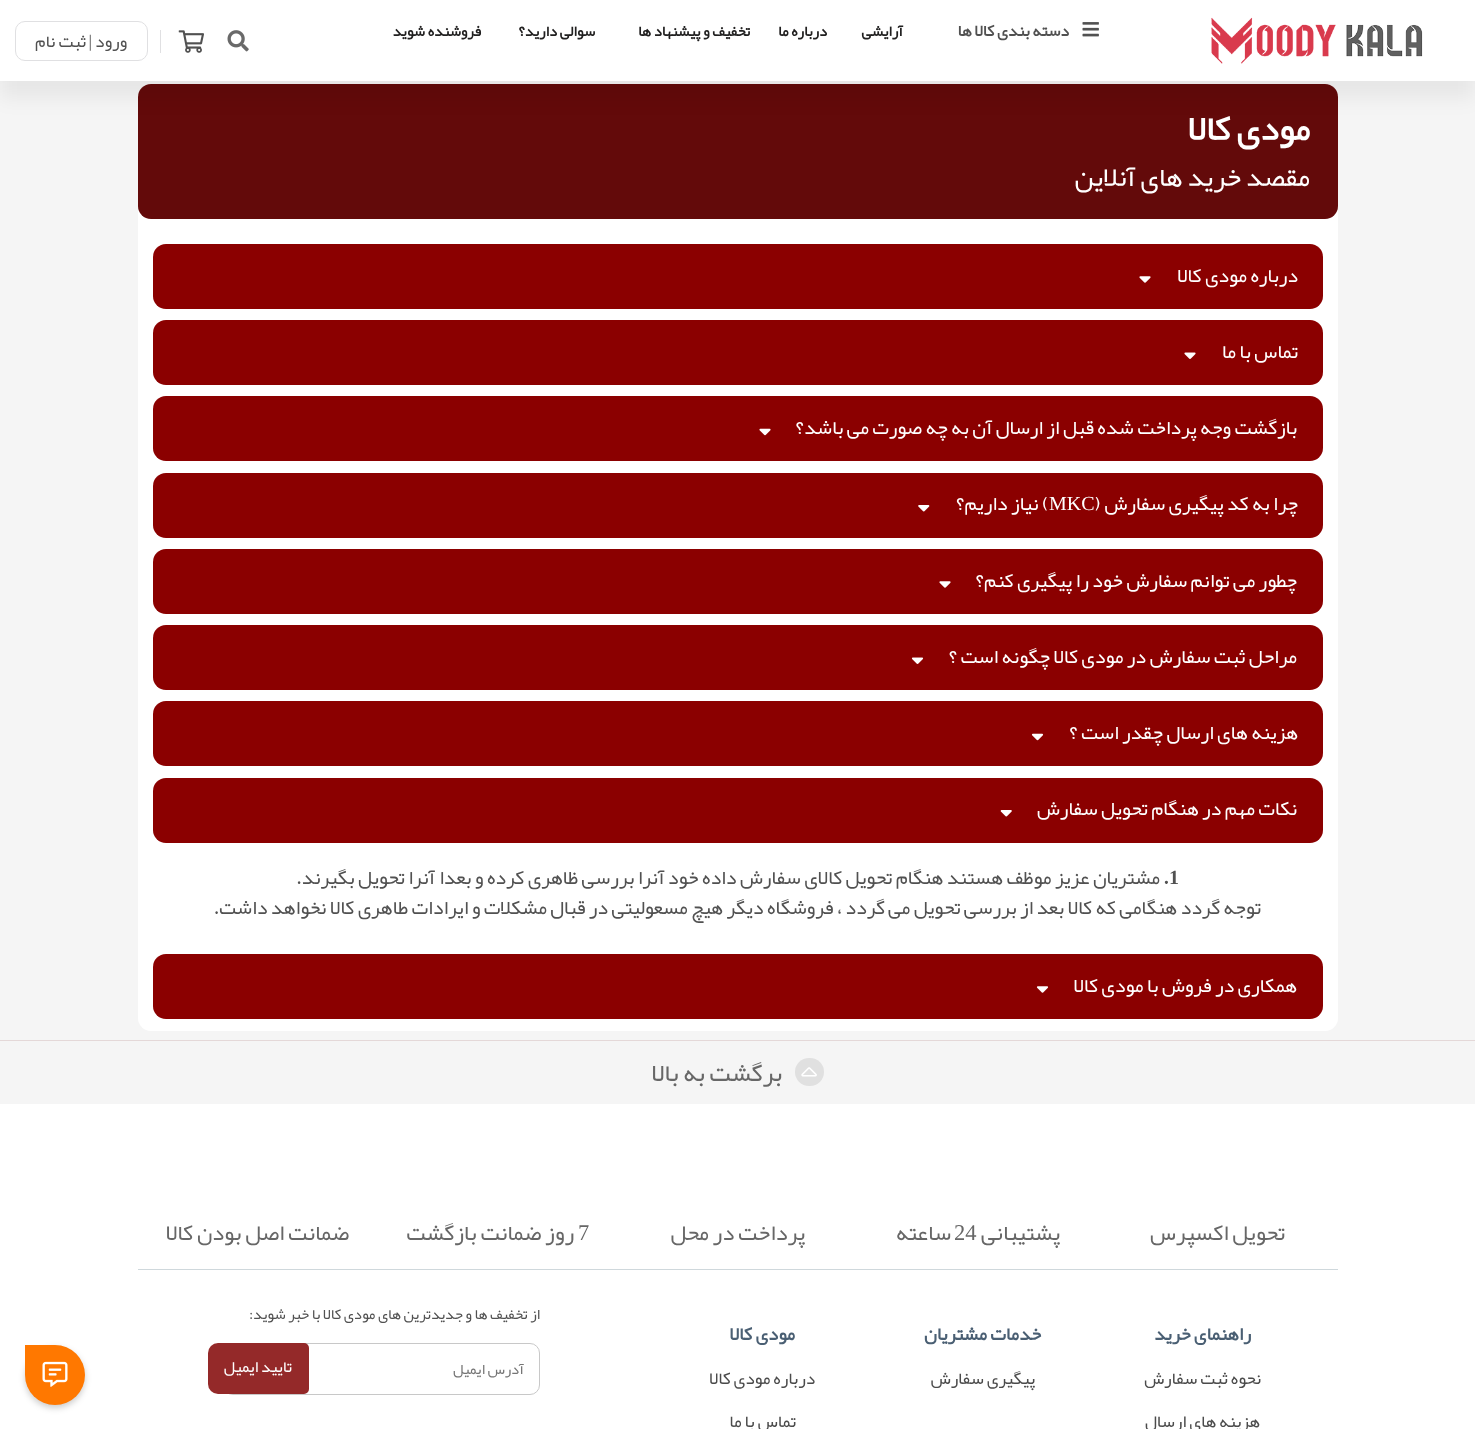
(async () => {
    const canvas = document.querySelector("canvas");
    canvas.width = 1475;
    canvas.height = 1429;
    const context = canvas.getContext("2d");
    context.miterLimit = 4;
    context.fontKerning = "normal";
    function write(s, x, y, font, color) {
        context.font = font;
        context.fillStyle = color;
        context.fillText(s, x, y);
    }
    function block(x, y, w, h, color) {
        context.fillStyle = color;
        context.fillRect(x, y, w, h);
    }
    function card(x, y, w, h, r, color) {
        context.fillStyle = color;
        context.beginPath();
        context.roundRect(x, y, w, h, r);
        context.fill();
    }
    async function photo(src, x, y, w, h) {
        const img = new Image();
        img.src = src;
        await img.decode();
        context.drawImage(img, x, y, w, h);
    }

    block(0, 0, 1475, 1429, "rgb(245, 245, 245)");
    card(138, 84, 1200, 947, 13, "rgb(255, 255, 255)");
    card(138, 84, 1200, 135, 13, "rgb(99, 10, 10)");
    context.fillStyle = "rgba(0, 0, 0, 0.06)";
    context.filter = "blur(9.5px)";
    context.beginPath();
    context.rect(0, 16, 1475, 82);
    context.fill();
    context.filter = "none";
    block(0, 0, 1475, 81, "rgb(255, 255, 255)");
    await photo("media/1.png", 1211, 17, 212, 47);
    await photo("media/2.png", 1082, 22, 17, 15);
    context.direction = "rtl";
    write("دسته بندی کالا ها", 1069, 36, "bold 16.25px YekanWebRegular", "rgb(81, 81, 81)");
    context.letterSpacing = "1.25px";
    write("آرایشی", 903, 36, "bold 15px YekanWebRegular", "rgb(33, 32, 32)");
    context.wordSpacing = "-1px";
    write("درباره ما", 827, 36, "bold 15px YekanWebRegular", "rgb(33, 32, 32)");
    write("تخفیف و پیشنهاد ها", 750, 36, "bold 15px YekanWebRegular", "rgb(33, 32, 32)");
    write("سوالی دارید؟", 595, 36, "bold 15px YekanWebRegular", "rgb(33, 32, 32)");
    write("فروشنده شوید", 481, 36, "bold 15px YekanWebRegular", "rgb(33, 32, 32)");
    await photo("media/3.png", 227, 30, 22, 22);
    block(160, 30, 1, 23, "rgb(224, 224, 226)");
    await photo("media/4.png", 178, 30, 26, 23);
    context.beginPath();
    context.roundRect(15.5, 21.5, 132, 39, 9.5);
    context.strokeStyle = "rgb(224, 224, 226)";
    context.stroke();
    context.letterSpacing = "0px";
    context.wordSpacing = "0px";
    write("ورود", 127, 47, "17.5px YekanWebRegular", "rgb(81, 81, 81)");
    write("|", 92, 47, "17.5px Liberation Serif", "rgb(81, 81, 81)");
    write("ثبت نام", 86, 47, "17.5px YekanWebRegular", "rgb(81, 81, 81)");
    write("مودی کالا", 1310, 140, "bold 35px YekanWebRegular", "rgb(255, 255, 255)");
    write("مقصد خرید های آنلاین", 1310, 186, "27.5px YekanWebRegular", "rgb(255, 255, 255)");
    card(153, 244, 1170, 65, 13, "rgb(139, 0, 0)");
    write("درباره مودی کالا", 1298, 282, "20px YekanWebRegular", "rgb(255, 255, 255)");
    await photo("media/5.png", 1139, 276, 12, 7);
    card(153, 320, 1170, 65, 13, "rgb(139, 0, 0)");
    write("تماس با ما", 1298, 358, "20px YekanWebRegular", "rgb(255, 255, 255)");
    await photo("media/6.png", 1184, 352, 12, 7);
    card(153, 396, 1170, 65, 13, "rgb(139, 0, 0)");
    write("بازگشت وجه پرداخت شده قبل از ارسال آن به چه صورت می باشد؟", 1297, 434, "20px YekanWebRegular", "rgb(255, 255, 255)");
    await photo("media/7.png", 759, 428, 12, 8);
    card(153, 473, 1170, 65, 13, "rgb(139, 0, 0)");
    write("چرا به کد پیگیری سفارش (", 1298, 510, "20px YekanWebRegular", "rgb(255, 255, 255)");
    context.direction = "ltr";
    write("MKC", 1049, 510, "20px Liberation Serif", "rgb(255, 255, 255)");
    context.direction = "rtl";
    write(") نیاز داریم؟", 1049, 510, "20px YekanWebRegular", "rgb(255, 255, 255)");
    await photo("media/8.png", 918, 505, 12, 7);
    card(153, 549, 1170, 65, 13, "rgb(139, 0, 0)");
    write("چطور می توانم سفارش خود را پیگیری کنم؟", 1297, 587, "20px YekanWebRegular", "rgb(255, 255, 255)");
    await photo("media/5.png", 939, 581, 12, 7);
    card(153, 625, 1170, 65, 13, "rgb(139, 0, 0)");
    write("مراحل ثبت سفارش در مودی کالا چگونه است ؟", 1297, 663, "20px YekanWebRegular", "rgb(255, 255, 255)");
    await photo("media/9.png", 911, 657, 13, 7);
    card(153, 701, 1170, 65, 13, "rgb(139, 0, 0)");
    write("هزینه های ارسال چقدر است ؟", 1298, 739, "20px YekanWebRegular", "rgb(255, 255, 255)");
    await photo("media/10.png", 1031, 733, 13, 8);
    card(153, 778, 1170, 65, 13, "rgb(139, 0, 0)");
    write("نکات مهم در هنگام تحویل سفارش", 1297, 815, "20px YekanWebRegular", "rgb(255, 255, 255)");
    await photo("media/11.png", 1000, 810, 12, 7);
    context.direction = "ltr";
    write("1", 1169, 884, "bold 20px Liberation Serif", "rgb(81, 81, 81)");
    write(".", 1163, 884, "bold 20px YekanWebRegular", "rgb(81, 81, 81)");
    context.direction = "rtl";
    write("مشتریان عزیز موظف هستند هنگام تحویل کالای سفارش داده خود آنرا بررسی ظاهری کرده و بعدا", 1160, 884, "20px YekanWebRegular", "rgb(81, 81, 81)");
    write("آنرا تحویل بگیرند.", 435, 884, "20px YekanWebRegular", "rgb(81, 81, 81)");
    write("توجه گردد هنگامی که کالا بعد از بررسی تحویل می گردد ، فروشگاه دیگر هیچ مسعولیتی در قبال", 1261, 914, "20px YekanWebRegular", "rgb(81, 81, 81)");
    write("مشکلات و ایرادات طاهری کالا نخواهد داشت.", 547, 914, "20px YekanWebRegular", "rgb(81, 81, 81)");
    card(153, 954, 1170, 65, 13, "rgb(139, 0, 0)");
    write("همکاری در فروش با مودی کالا", 1297, 992, "20px YekanWebRegular", "rgb(255, 255, 255)");
    await photo("media/12.png", 1036, 986, 13, 7);
    block(0, 1104, 1475, 325, "rgb(255, 255, 255)");
    block(0, 1040, 1475, 1, "rgb(228, 216, 216)");
    card(795, 1058, 29, 28, 14, "rgb(224, 224, 224)");
    await photo("media/13.png", 801, 1067, 16, 10);
    write("برگشت به بالا", 782, 1081, "25px YekanWebRegular", "rgb(103, 103, 103)");
    block(138, 1269, 1200, 1, "rgb(207, 216, 220)");
    write("تحویل اکسپرس", 1285, 1240, "22.5px YekanWebRegular", "rgb(103, 103, 103)");
    write("پشتیبانی", 1060, 1240, "22.5px YekanWebRegular", "rgb(103, 103, 103)");
    context.direction = "ltr";
    write("24", 954, 1240, "22.5px Liberation Serif", "rgb(103, 103, 103)");
    context.direction = "rtl";
    write("ساعته", 951, 1240, "22.5px YekanWebRegular", "rgb(103, 103, 103)");
    write("پرداخت در محل", 805, 1240, "22.5px YekanWebRegular", "rgb(103, 103, 103)");
    context.direction = "ltr";
    write("7", 578, 1240, "22.5px Liberation Serif", "rgb(103, 103, 103)");
    context.direction = "rtl";
    write("روز ضمانت بازگشت", 574, 1240, "22.5px YekanWebRegular", "rgb(103, 103, 103)");
    write("ضمانت اصل بودن کالا", 349, 1240, "22.5px YekanWebRegular", "rgb(103, 103, 103)");
    write("راهنمای خرید", 1251, 1340, "bold 18.75px YekanWebRegular", "rgb(74, 95, 115)");
    write("نحوه ثبت سفارش", 1261, 1384, "17.5px YekanWebRegular", "rgb(75, 75, 75)");
    write("هزینه های ارسال", 1260, 1427, "17.5px YekanWebRegular", "rgb(75, 75, 75)");
    write("خدمات مشتریان", 1041, 1340, "bold 18.75px YekanWebRegular", "rgb(74, 95, 115)");
    write("پیگیری سفارش", 1035, 1384, "17.5px YekanWebRegular", "rgb(75, 75, 75)");
    write("مودی کالا", 795, 1340, "bold 18.75px YekanWebRegular", "rgb(74, 95, 115)");
    write("درباره مودی کالا", 815, 1384, "17.5px YekanWebRegular", "rgb(75, 75, 75)");
    write("تماس با ما", 796, 1427, "17.5px YekanWebRegular", "rgb(75, 75, 75)");
    write("از تخفیف ها و جدیدترین های مودی کالا با خبر شوید:", 540, 1319, "15px YekanWebRegular", "rgb(81, 81, 81)");
    context.beginPath();
    context.roundRect(223.5, 1343.5, 316, 51, 9.5);
    context.strokeStyle = "rgb(200, 200, 200)";
    context.stroke();
    write("آدرس ایمیل", 524, 1374, "15px YekanWebRegular", "rgb(117, 117, 117)");
    context.fillStyle = "rgb(148, 41, 41)";
    context.beginPath();
    context.roundRect(208, 1343, 101, 51, [10, 5, 5, 10]);
    context.fill();
    write("تایید ایمیل", 292, 1372, "16.25px YekanWebRegular", "rgb(255, 255, 255)");
    context.fillStyle = "rgba(0, 0, 0, 0.2)";
    context.filter = "blur(3px)";
    context.beginPath();
    context.roundRect(25, 1348, 60, 60, 30);
    context.fill();
    context.filter = "none";
    context.fillStyle = "rgb(255, 120, 0)";
    context.beginPath();
    context.roundRect(25, 1345, 60, 60, [0, 30, 30, 30]);
    context.fill();
    await photo("media/14.png", 42, 1361, 26, 26);
})();
